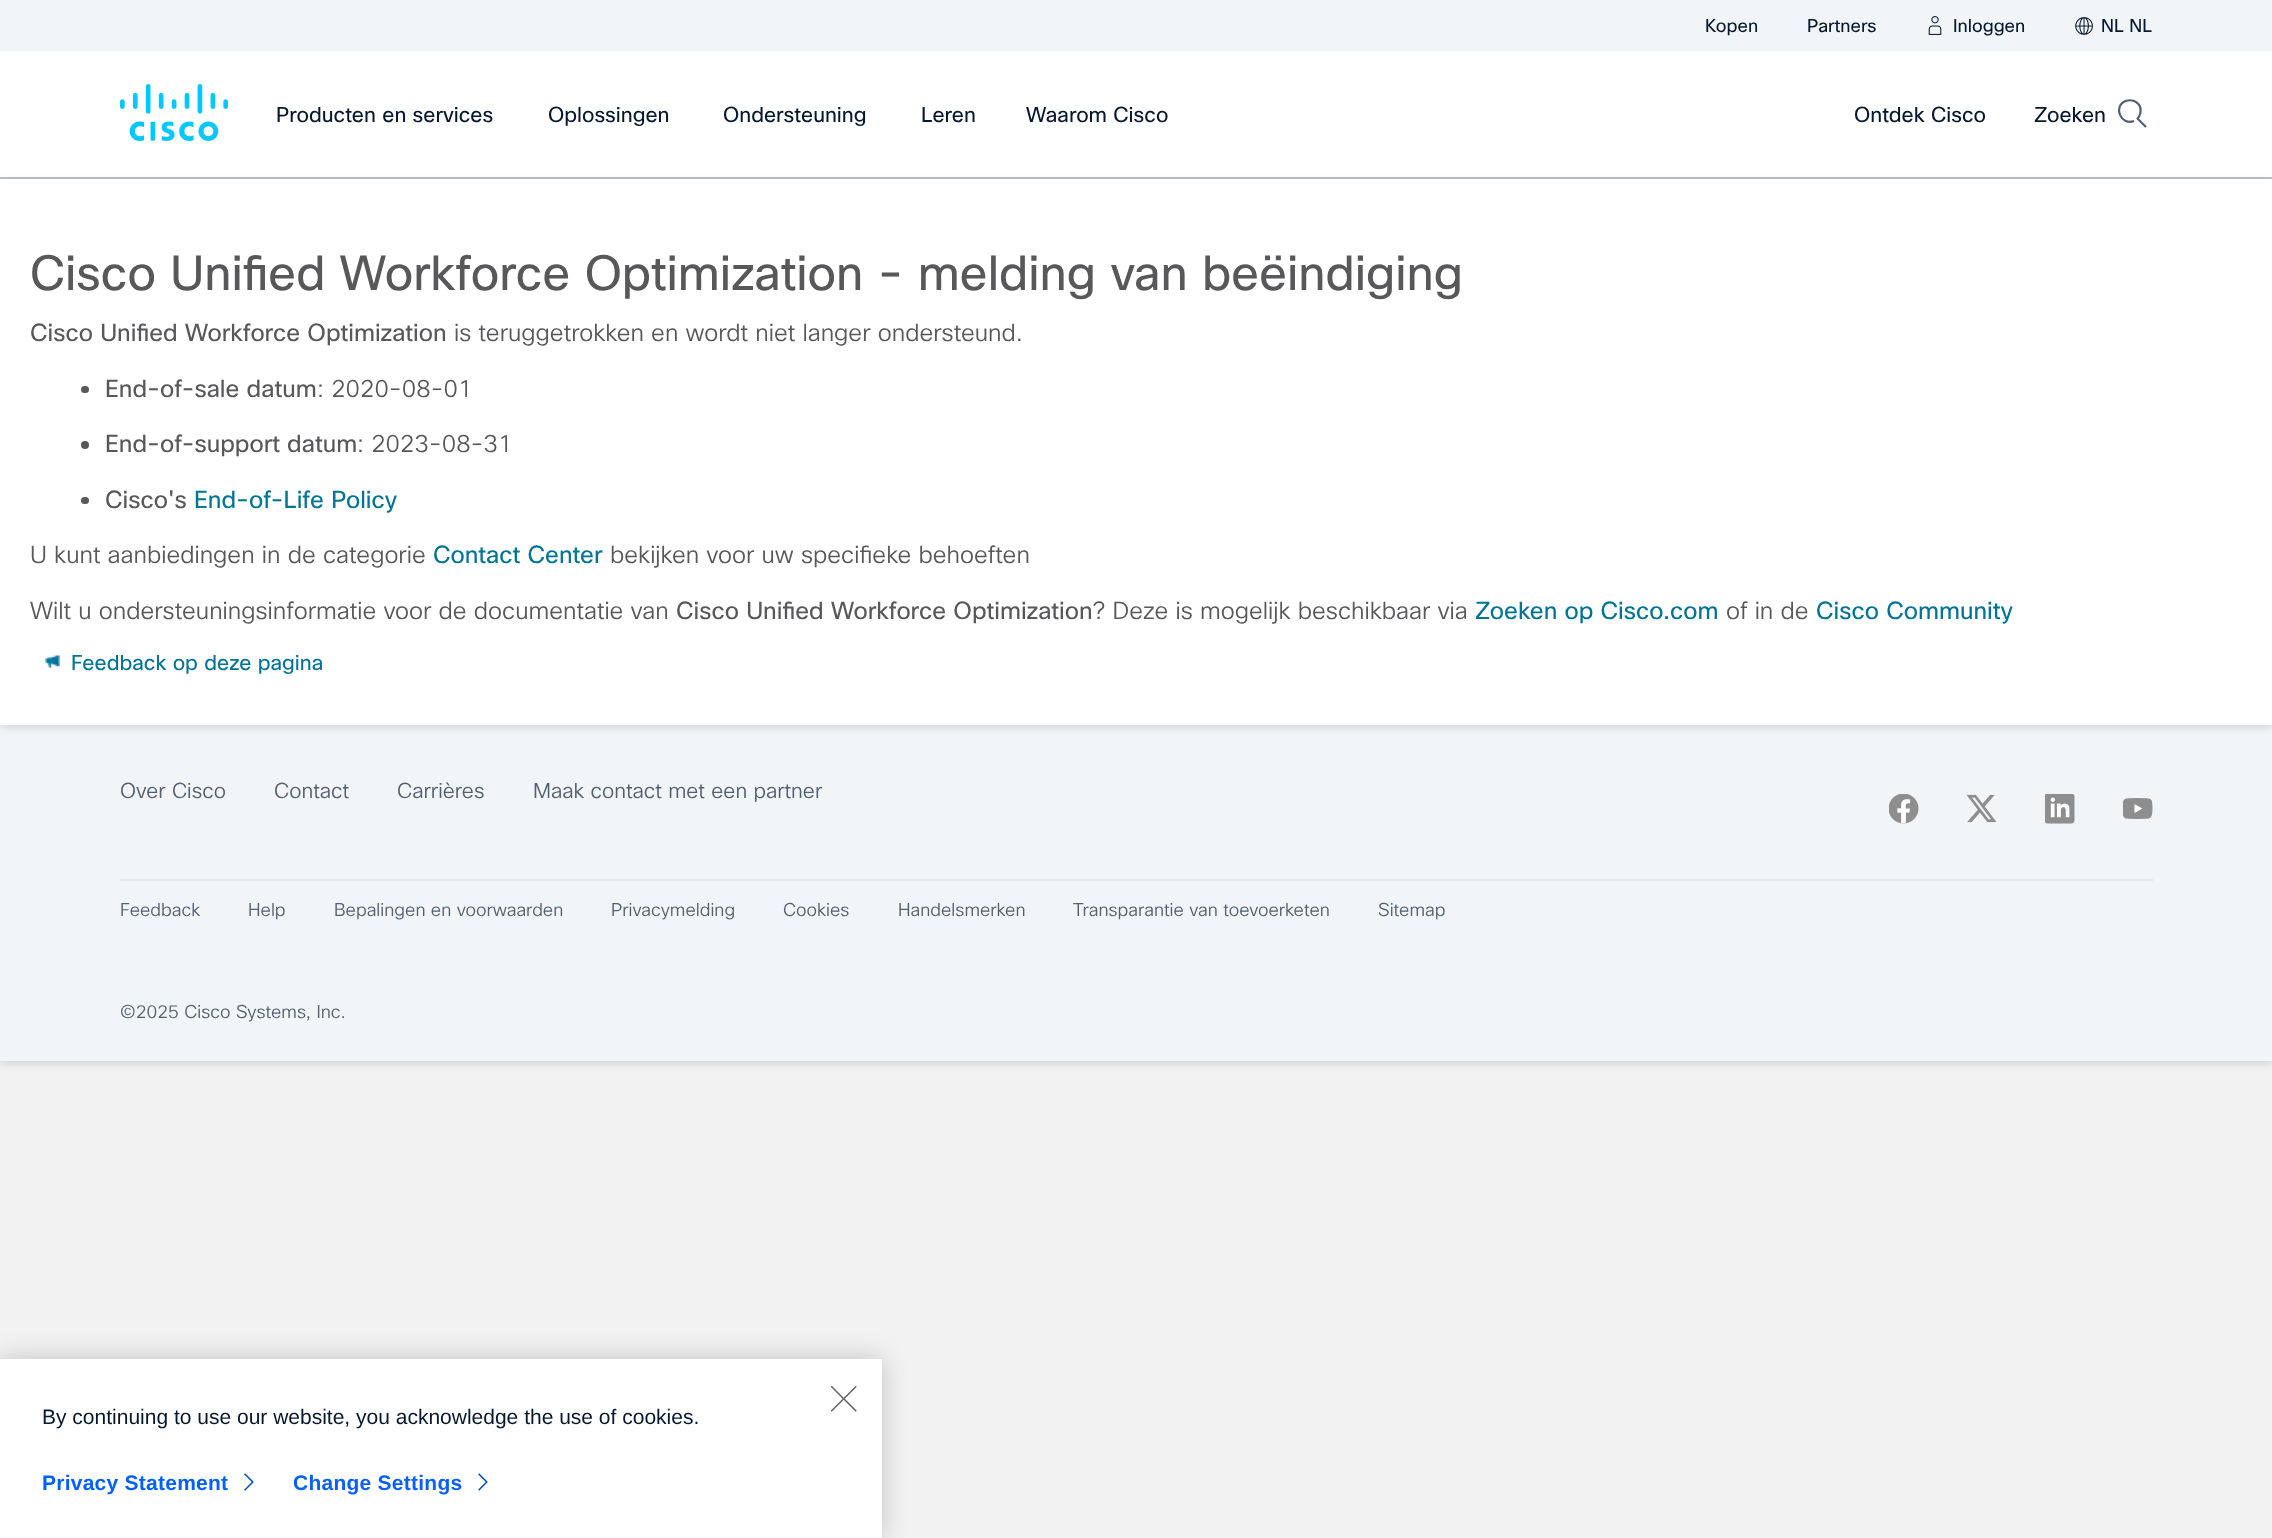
(async () => {
    const canvas = document.querySelector("canvas");
    canvas.width = 2272;
    canvas.height = 1538;
    const context = canvas.getContext("2d");
    context.miterLimit = 4;
    context.fontKerning = "normal";
    function write(s, x, y, font, color) {
        context.font = font;
        context.fillStyle = color;
        context.fillText(s, x, y);
    }
    function block(x, y, w, h, color) {
        context.fillStyle = color;
        context.fillRect(x, y, w, h);
    }
    function card(x, y, w, h, r, color) {
        context.fillStyle = color;
        context.beginPath();
        context.roundRect(x, y, w, h, r);
        context.fill();
    }
    async function photo(src, x, y, w, h) {
        const img = new Image();
        img.src = src;
        await img.decode();
        context.drawImage(img, x, y, w, h);
    }

    block(0, 0, 2272, 1538, "rgb(242, 242, 242)");
    block(0, 0, 2272, 51, "rgb(242, 245, 247)");
    write("Kopen", 1705, 32, "18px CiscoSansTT", "rgb(7, 24, 45)");
    write("Partners", 1807, 32, "18px CiscoSansTT", "rgb(7, 24, 45)");
    await photo("media/1.png", 1928, 16, 14, 19);
    write("Inloggen", 1953, 32, "18px CiscoSansTT", "rgb(7, 24, 45)");
    await photo("media/2.png", 2075, 17, 18, 18);
    write("NL NL", 2101, 32, "18px CiscoSansTT", "rgb(7, 24, 45)");
    block(0, 51, 2272, 126, "rgb(255, 255, 255)");
    block(0, 177, 2272, 2, "rgb(185, 193, 201)");
    await photo("media/3.png", 120, 84, 108, 57);
    write("Producten en services", 276, 122, "21px CiscoSansTT", "rgb(7, 24, 45)");
    write("Oplossingen", 548, 122, "21px CiscoSansTT", "rgb(7, 24, 45)");
    write("Ondersteuning", 723, 122, "21px CiscoSansTT", "rgb(7, 24, 45)");
    write("Leren", 921, 122, "21px CiscoSansTT", "rgb(7, 24, 45)");
    write("Waarom Cisco", 1026, 122, "21px CiscoSansTT", "rgb(7, 24, 45)");
    write("Ontdek Cisco", 1854, 122, "21px CiscoSansTT", "rgb(7, 24, 45)");
    write("Zoeken", 2034, 122, "21px CiscoSansTT", "rgb(7, 24, 45)");
    context.beginPath();
    context.moveTo(2134, 121);
    context.bezierCurveTo(2121, 126, 2112.5, 106.5, 2125.5, 101);
    context.bezierCurveTo(2128.5, 100, 2131.5, 100, 2134, 101);
    context.bezierCurveTo(2137.5, 102.5, 2140, 105.5, 2140.5, 108.5);
    context.bezierCurveTo(2141, 112.5, 2140, 116, 2137.5, 118.5);
    context.lineTo(2146, 127);
    context.strokeStyle = "rgb(83, 96, 112)";
    context.lineWidth = 2.2;
    context.lineJoin = "round";
    context.stroke();
    block(0, 725, 2272, 336, "rgb(242, 245, 247)");
    context.fillStyle = "rgba(0, 0, 0, 0.12)";
    context.filter = "blur(4px)";
    context.beginPath();
    context.rect(0, 182, 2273, 546);
    context.fill();
    context.filter = "none";
    context.save();
    context.beginPath();
    context.moveTo(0, 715);
    context.lineTo(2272, 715);
    context.lineTo(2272, 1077);
    context.lineTo(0, 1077);
    context.closePath();
    context.moveTo(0, 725);
    context.lineTo(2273, 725);
    context.lineTo(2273, 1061);
    context.lineTo(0, 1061);
    context.closePath();
    context.clip("evenodd");
    context.filter = "blur(4px)";
    context.beginPath();
    context.rect(0, 728, 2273, 336);
    context.fill();
    context.filter = "none";
    context.restore();
    block(0, 179, 2272, 546, "rgb(255, 255, 255)");
    write("Cisco Unified Workforce Optimization - melding van beëindiging", 30, 290, "48px CiscoSansTT", "rgb(88, 88, 91)");
    write("Cisco Unified Workforce Optimization", 30, 341, "24px CiscoSansTT", "rgb(88, 88, 91)");
    write("is teruggetrokken en wordt niet langer ondersteund.", 454, 341, "300 24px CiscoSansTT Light", "rgb(88, 88, 91)");
    card(81, 386, 8, 7, 3.5, "rgb(88, 88, 91)");
    write("End-of-sale datum", 105, 397, "24px CiscoSansTT", "rgb(88, 88, 91)");
    write(": 2020-08-01", 317, 397, "300 24px CiscoSansTT Light", "rgb(88, 88, 91)");
    context.beginPath();
    context.arc(85, 445, 4, 0, Math.PI * 2);
    context.fill();
    write("End-of-support datum", 105, 452, "24px CiscoSansTT", "rgb(88, 88, 91)");
    write(": 2023-08-31", 357, 452, "300 24px CiscoSansTT Light", "rgb(88, 88, 91)");
    card(81, 497, 8, 7, 3.5, "rgb(88, 88, 91)");
    write("Cisco's", 105, 508, "24px CiscoSansTT", "rgb(88, 88, 91)");
    write("End-of-Life Policy", 194, 508, "24px CiscoSansTT", "rgb(0, 116, 147)");
    write("U kunt aanbiedingen in de categorie", 30, 563, "300 24px CiscoSansTT Light", "rgb(88, 88, 91)");
    write("Contact Center", 433, 563, "24px CiscoSansTT", "rgb(0, 116, 147)");
    write("bekijken voor uw specifieke behoeften", 610, 563, "300 24px CiscoSansTT Light", "rgb(88, 88, 91)");
    write("Wilt u ondersteuningsinformatie voor de documentatie van", 30, 619, "300 24px CiscoSansTT Light", "rgb(88, 88, 91)");
    write("Cisco Unified Workforce Optimization", 676, 619, "24px CiscoSansTT", "rgb(88, 88, 91)");
    write("? Deze is mogelijk beschikbaar via", 1092, 619, "300 24px CiscoSansTT Light", "rgb(88, 88, 91)");
    write("Zoeken op Cisco.com", 1475, 619, "24px CiscoSansTT", "rgb(0, 116, 147)");
    write("of in de", 1726, 619, "300 24px CiscoSansTT Light", "rgb(88, 88, 91)");
    write("Cisco Community", 1816, 619, "24px CiscoSansTT", "rgb(0, 116, 147)");
    await photo("media/4.png", 45, 655, 15, 13);
    write("Feedback op deze pagina", 71, 670, "21px CiscoSansTT", "rgb(0, 116, 147)");
    write("Over Cisco", 120, 798, "300 21px CiscoSansTT Light", "rgb(83, 96, 112)");
    write("Contact", 274, 798, "300 21px CiscoSansTT Light", "rgb(83, 96, 112)");
    write("Carrières", 397, 798, "300 21px CiscoSansTT Light", "rgb(83, 96, 112)");
    write("Maak contact met een partner", 533, 798, "300 21px CiscoSansTT Light", "rgb(83, 96, 112)");
    await photo("media/5.png", 1889, 794, 30, 30);
    await photo("media/6.png", 1967, 794, 30, 29);
    await photo("media/7.png", 2045, 794, 30, 30);
    await photo("media/8.png", 2123, 798, 30, 21);
    block(120, 879, 2033, 2, "rgb(230, 231, 232)");
    write("Feedback", 120, 916, "300 18px CiscoSansTT Light", "rgb(83, 96, 112)");
    write("Help", 248, 916, "300 18px CiscoSansTT Light", "rgb(83, 96, 112)");
    write("Bepalingen en voorwaarden", 334, 916, "300 18px CiscoSansTT Light", "rgb(83, 96, 112)");
    write("Privacymelding", 611, 916, "300 18px CiscoSansTT Light", "rgb(83, 96, 112)");
    write("Cookies", 783, 916, "300 18px CiscoSansTT Light", "rgb(83, 96, 112)");
    write("Handelsmerken", 898, 916, "300 18px CiscoSansTT Light", "rgb(83, 96, 112)");
    write("Transparantie van toevoerketen", 1073, 916, "300 18px CiscoSansTT Light", "rgb(83, 96, 112)");
    write("Sitemap", 1378, 916, "300 18px CiscoSansTT Light", "rgb(83, 96, 112)");
    write("©2025 Cisco Systems, Inc.", 120, 1018, "300 18px CiscoSansTT Light", "rgb(83, 96, 112)");
    context.fillStyle = "rgba(0, 0, 0, 0.2)";
    context.filter = "blur(13.5px)";
    context.beginPath();
    context.rect(0, 1359, 882, 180);
    context.fill();
    context.filter = "none";
    block(0, 1359, 882, 179, "rgb(255, 255, 255)");
    await photo("media/9.png", 830, 1385, 27, 27);
    write("By continuing to use our website, you acknowledge the use of cookies.", 42, 1424, "21px Liberation Sans", "rgb(7, 24, 45)");
    context.letterSpacing = "0.25px";
    write("Privacy Statement", 42, 1490, "bold 21px Liberation Sans", "rgb(0, 96, 255)");
    await photo("media/10.png", 244, 1473, 10, 18);
    write("Change Settings", 293, 1490, "bold 21px Liberation Sans", "rgb(10, 96, 255)");
    await photo("media/10.png", 478, 1473, 10, 18);
})();
